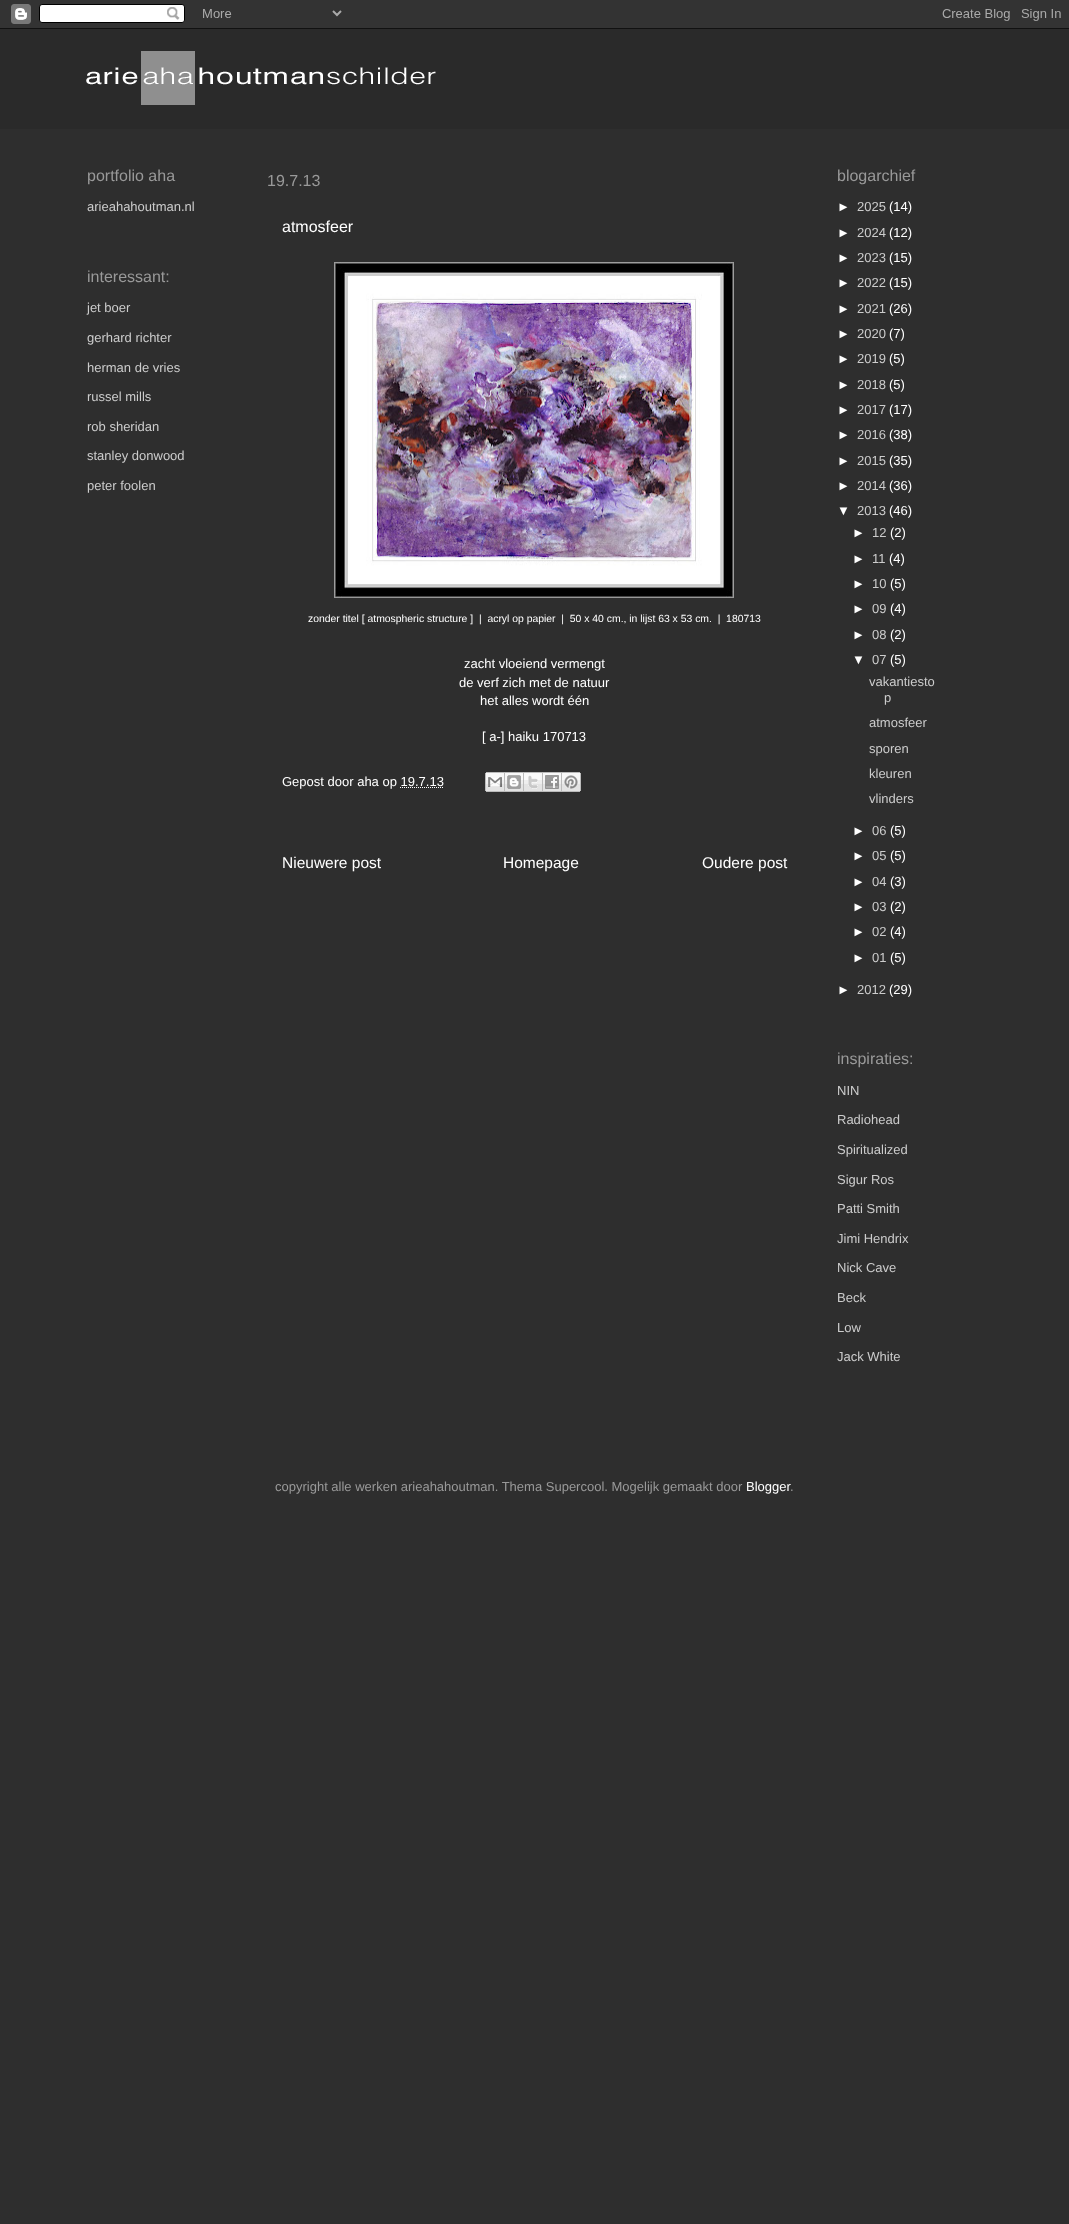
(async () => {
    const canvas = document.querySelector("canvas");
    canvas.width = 1069;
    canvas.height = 2224;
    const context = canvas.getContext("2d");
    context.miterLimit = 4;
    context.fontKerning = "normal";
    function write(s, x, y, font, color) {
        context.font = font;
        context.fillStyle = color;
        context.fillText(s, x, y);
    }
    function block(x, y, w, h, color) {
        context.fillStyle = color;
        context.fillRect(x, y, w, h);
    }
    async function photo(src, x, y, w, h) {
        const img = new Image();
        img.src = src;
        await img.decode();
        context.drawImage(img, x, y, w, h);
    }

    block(0, 0, 1069, 2224, "rgb(46, 46, 46)");
    await photo("media/1.png", 0, 0, 1069, 29);
    block(0, 29, 1069, 100, "rgb(42, 42, 42)");
    await photo("media/2.png", 86, 51, 350, 54);
    write("portfolio aha", 87, 181, "16px Liberation Sans", "rgb(153, 153, 153)");
    write("arieahahoutman.nl", 87, 211, "13px Liberation Sans", "rgb(204, 204, 204)");
    write("interessant:", 87, 282, "16px Liberation Sans", "rgb(153, 153, 153)");
    write("jet boer", 87, 312, "13px Liberation Sans", "rgb(204, 204, 204)");
    write("gerhard richter", 87, 342, "13px Liberation Sans", "rgb(204, 204, 204)");
    write("herman de vries", 87, 372, "13px Liberation Sans", "rgb(204, 204, 204)");
    write("russel mills", 87, 401, "13px Liberation Sans", "rgb(204, 204, 204)");
    write("rob sheridan", 87, 431, "13px Liberation Sans", "rgb(204, 204, 204)");
    write("stanley donwood", 87, 460, "13px Liberation Sans", "rgb(204, 204, 204)");
    write("peter foolen", 87, 490, "13px Liberation Sans", "rgb(204, 204, 204)");
    write("19.7.13", 267, 186, "16px Liberation Sans", "rgb(153, 153, 153)");
    write("atmosfeer", 282, 232, "16px Liberation Sans", "rgb(255, 255, 255)");
    await photo("media/3.png", 334, 262, 400, 336);
    write("zonder titel [ atmospheric structure ]  |  acryl op papier  |  50 x 40 cm., in lijst 63 x 53 cm.  |  180713", 308, 622, "10.4px Liberation Sans", "rgb(255, 255, 255)");
    write("zacht vloeiend vermengt", 464, 668, "13px Liberation Sans", "rgb(255, 255, 255)");
    write("de verf zich met de natuur", 459, 687, "13px Liberation Sans", "rgb(255, 255, 255)");
    write("het alles wordt één", 480, 705, "13px Liberation Sans", "rgb(255, 255, 255)");
    write("[ a-] haiku 170713", 482, 741, "13px Liberation Sans", "rgb(255, 255, 255)");
    write("Gepost door aha op 19.7.13", 282, 786, "13px Liberation Sans", "rgb(255, 255, 255)");
    await photo("media/4.png", 485, 772, 20, 20);
    await photo("media/5.png", 505, 772, 19, 20);
    await photo("media/6.png", 524, 772, 19, 20);
    await photo("media/7.png", 543, 772, 19, 20);
    await photo("media/8.png", 562, 772, 19, 20);
    context.beginPath();
    context.moveTo(400, 787.5);
    context.lineTo(443.5, 787.5);
    context.strokeStyle = "rgb(255, 255, 255)";
    context.setLineDash([1, 1]);
    context.stroke();
    write("Nieuwere post", 282, 868, "15.5px Liberation Sans", "rgb(255, 255, 255)");
    write("Homepage", 503, 868, "15.5px Liberation Sans", "rgb(255, 255, 255)");
    write("Oudere post", 702, 868, "15.5px Liberation Sans", "rgb(255, 255, 255)");
    write("blogarchief", 837, 181, "16px Liberation Sans", "rgb(153, 153, 153)");
    write("►", 837, 211, "13px Liberation Sans", "rgb(255, 255, 255)");
    write("2025", 857, 211, "13px Liberation Sans", "rgb(204, 204, 204)");
    write("(14)", 889, 211, "13px Liberation Sans", "rgb(255, 255, 255)");
    write("►", 837, 237, "13px Liberation Sans", "rgb(255, 255, 255)");
    write("2024", 857, 237, "13px Liberation Sans", "rgb(204, 204, 204)");
    write("(12)", 889, 237, "13px Liberation Sans", "rgb(255, 255, 255)");
    write("►", 837, 262, "13px Liberation Sans", "rgb(255, 255, 255)");
    write("2023", 857, 262, "13px Liberation Sans", "rgb(204, 204, 204)");
    write("(15)", 889, 262, "13px Liberation Sans", "rgb(255, 255, 255)");
    write("►", 837, 287, "13px Liberation Sans", "rgb(255, 255, 255)");
    write("2022", 857, 287, "13px Liberation Sans", "rgb(204, 204, 204)");
    write("(15)", 889, 287, "13px Liberation Sans", "rgb(255, 255, 255)");
    write("►", 837, 313, "13px Liberation Sans", "rgb(255, 255, 255)");
    write("2021", 857, 313, "13px Liberation Sans", "rgb(204, 204, 204)");
    write("(26)", 889, 313, "13px Liberation Sans", "rgb(255, 255, 255)");
    write("►", 837, 338, "13px Liberation Sans", "rgb(255, 255, 255)");
    write("2020", 857, 338, "13px Liberation Sans", "rgb(204, 204, 204)");
    write("(7)", 889, 338, "13px Liberation Sans", "rgb(255, 255, 255)");
    write("►", 837, 363, "13px Liberation Sans", "rgb(255, 255, 255)");
    write("2019", 857, 363, "13px Liberation Sans", "rgb(204, 204, 204)");
    write("(5)", 889, 363, "13px Liberation Sans", "rgb(255, 255, 255)");
    write("►", 837, 389, "13px Liberation Sans", "rgb(255, 255, 255)");
    write("2018", 857, 389, "13px Liberation Sans", "rgb(204, 204, 204)");
    write("(5)", 889, 389, "13px Liberation Sans", "rgb(255, 255, 255)");
    write("►", 837, 414, "13px Liberation Sans", "rgb(255, 255, 255)");
    write("2017", 857, 414, "13px Liberation Sans", "rgb(204, 204, 204)");
    write("(17)", 889, 414, "13px Liberation Sans", "rgb(255, 255, 255)");
    write("►", 837, 439, "13px Liberation Sans", "rgb(255, 255, 255)");
    write("2016", 857, 439, "13px Liberation Sans", "rgb(204, 204, 204)");
    write("(38)", 889, 439, "13px Liberation Sans", "rgb(255, 255, 255)");
    write("►", 837, 465, "13px Liberation Sans", "rgb(255, 255, 255)");
    write("2015", 857, 465, "13px Liberation Sans", "rgb(204, 204, 204)");
    write("(35)", 889, 465, "13px Liberation Sans", "rgb(255, 255, 255)");
    write("►", 837, 490, "13px Liberation Sans", "rgb(255, 255, 255)");
    write("2014", 857, 490, "13px Liberation Sans", "rgb(204, 204, 204)");
    write("(36)", 889, 490, "13px Liberation Sans", "rgb(255, 255, 255)");
    write("▼", 837, 515, "13px Liberation Sans", "rgb(255, 255, 255)");
    write("2013", 857, 515, "13px Liberation Sans", "rgb(204, 204, 204)");
    write("(46)", 889, 515, "13px Liberation Sans", "rgb(255, 255, 255)");
    write("►", 852, 537, "13px Liberation Sans", "rgb(255, 255, 255)");
    write("12", 872, 537, "13px Liberation Sans", "rgb(204, 204, 204)");
    write("(2)", 890, 537, "13px Liberation Sans", "rgb(255, 255, 255)");
    write("►", 852, 563, "13px Liberation Sans", "rgb(255, 255, 255)");
    write("11", 872, 563, "13px Liberation Sans", "rgb(204, 204, 204)");
    write("(4)", 889, 563, "13px Liberation Sans", "rgb(255, 255, 255)");
    write("►", 852, 588, "13px Liberation Sans", "rgb(255, 255, 255)");
    write("10", 872, 588, "13px Liberation Sans", "rgb(204, 204, 204)");
    write("(5)", 890, 588, "13px Liberation Sans", "rgb(255, 255, 255)");
    write("►", 852, 613, "13px Liberation Sans", "rgb(255, 255, 255)");
    write("09", 872, 613, "13px Liberation Sans", "rgb(204, 204, 204)");
    write("(4)", 890, 613, "13px Liberation Sans", "rgb(255, 255, 255)");
    write("►", 852, 639, "13px Liberation Sans", "rgb(255, 255, 255)");
    write("08", 872, 639, "13px Liberation Sans", "rgb(204, 204, 204)");
    write("(2)", 890, 639, "13px Liberation Sans", "rgb(255, 255, 255)");
    write("▼", 852, 664, "13px Liberation Sans", "rgb(255, 255, 255)");
    write("07", 872, 664, "13px Liberation Sans", "rgb(204, 204, 204)");
    write("(5)", 890, 664, "13px Liberation Sans", "rgb(255, 255, 255)");
    write("vakantiesto", 869, 686, "13px Liberation Sans", "rgb(204, 204, 204)");
    write("p", 884, 702, "13px Liberation Sans", "rgb(204, 204, 204)");
    write("atmosfeer", 869, 727, "13px Liberation Sans", "rgb(204, 204, 204)");
    write("sporen", 869, 753, "13px Liberation Sans", "rgb(204, 204, 204)");
    write("kleuren", 869, 778, "13px Liberation Sans", "rgb(204, 204, 204)");
    write("vlinders", 869, 803, "13px Liberation Sans", "rgb(204, 204, 204)");
    write("►", 852, 835, "13px Liberation Sans", "rgb(255, 255, 255)");
    write("06", 872, 835, "13px Liberation Sans", "rgb(204, 204, 204)");
    write("(5)", 890, 835, "13px Liberation Sans", "rgb(255, 255, 255)");
    write("►", 852, 860, "13px Liberation Sans", "rgb(255, 255, 255)");
    write("05", 872, 860, "13px Liberation Sans", "rgb(204, 204, 204)");
    write("(5)", 890, 860, "13px Liberation Sans", "rgb(255, 255, 255)");
    write("►", 852, 886, "13px Liberation Sans", "rgb(255, 255, 255)");
    write("04", 872, 886, "13px Liberation Sans", "rgb(204, 204, 204)");
    write("(3)", 890, 886, "13px Liberation Sans", "rgb(255, 255, 255)");
    write("►", 852, 911, "13px Liberation Sans", "rgb(255, 255, 255)");
    write("03", 872, 911, "13px Liberation Sans", "rgb(204, 204, 204)");
    write("(2)", 890, 911, "13px Liberation Sans", "rgb(255, 255, 255)");
    write("►", 852, 936, "13px Liberation Sans", "rgb(255, 255, 255)");
    write("02", 872, 936, "13px Liberation Sans", "rgb(204, 204, 204)");
    write("(4)", 890, 936, "13px Liberation Sans", "rgb(255, 255, 255)");
    write("►", 852, 962, "13px Liberation Sans", "rgb(255, 255, 255)");
    write("01", 872, 962, "13px Liberation Sans", "rgb(204, 204, 204)");
    write("(5)", 890, 962, "13px Liberation Sans", "rgb(255, 255, 255)");
    write("►", 837, 994, "13px Liberation Sans", "rgb(255, 255, 255)");
    write("2012", 857, 994, "13px Liberation Sans", "rgb(204, 204, 204)");
    write("(29)", 889, 994, "13px Liberation Sans", "rgb(255, 255, 255)");
    write("inspiraties:", 837, 1064, "16px Liberation Sans", "rgb(153, 153, 153)");
    write("NIN", 837, 1095, "13px Liberation Sans", "rgb(204, 204, 204)");
    write("Radiohead", 837, 1124, "13px Liberation Sans", "rgb(204, 204, 204)");
    write("Spiritualized", 837, 1154, "13px Liberation Sans", "rgb(204, 204, 204)");
    write("Sigur Ros", 837, 1184, "13px Liberation Sans", "rgb(204, 204, 204)");
    write("Patti Smith", 837, 1213, "13px Liberation Sans", "rgb(204, 204, 204)");
    write("Jimi Hendrix", 837, 1243, "13px Liberation Sans", "rgb(204, 204, 204)");
    write("Nick Cave", 837, 1272, "13px Liberation Sans", "rgb(204, 204, 204)");
    write("Beck", 837, 1302, "13px Liberation Sans", "rgb(204, 204, 204)");
    write("Low", 837, 1332, "13px Liberation Sans", "rgb(204, 204, 204)");
    write("Jack White", 837, 1361, "13px Liberation Sans", "rgb(204, 204, 204)");
    write("copyright alle werken arieahahoutman. Thema Supercool. Mogelijk gemaakt door", 275, 1491, "13px Liberation Sans", "rgb(153, 153, 153)");
    write("Blogger", 746, 1491, "13px Liberation Sans", "rgb(255, 255, 255)");
    write(".", 790, 1491, "13px Liberation Sans", "rgb(153, 153, 153)");
})();
